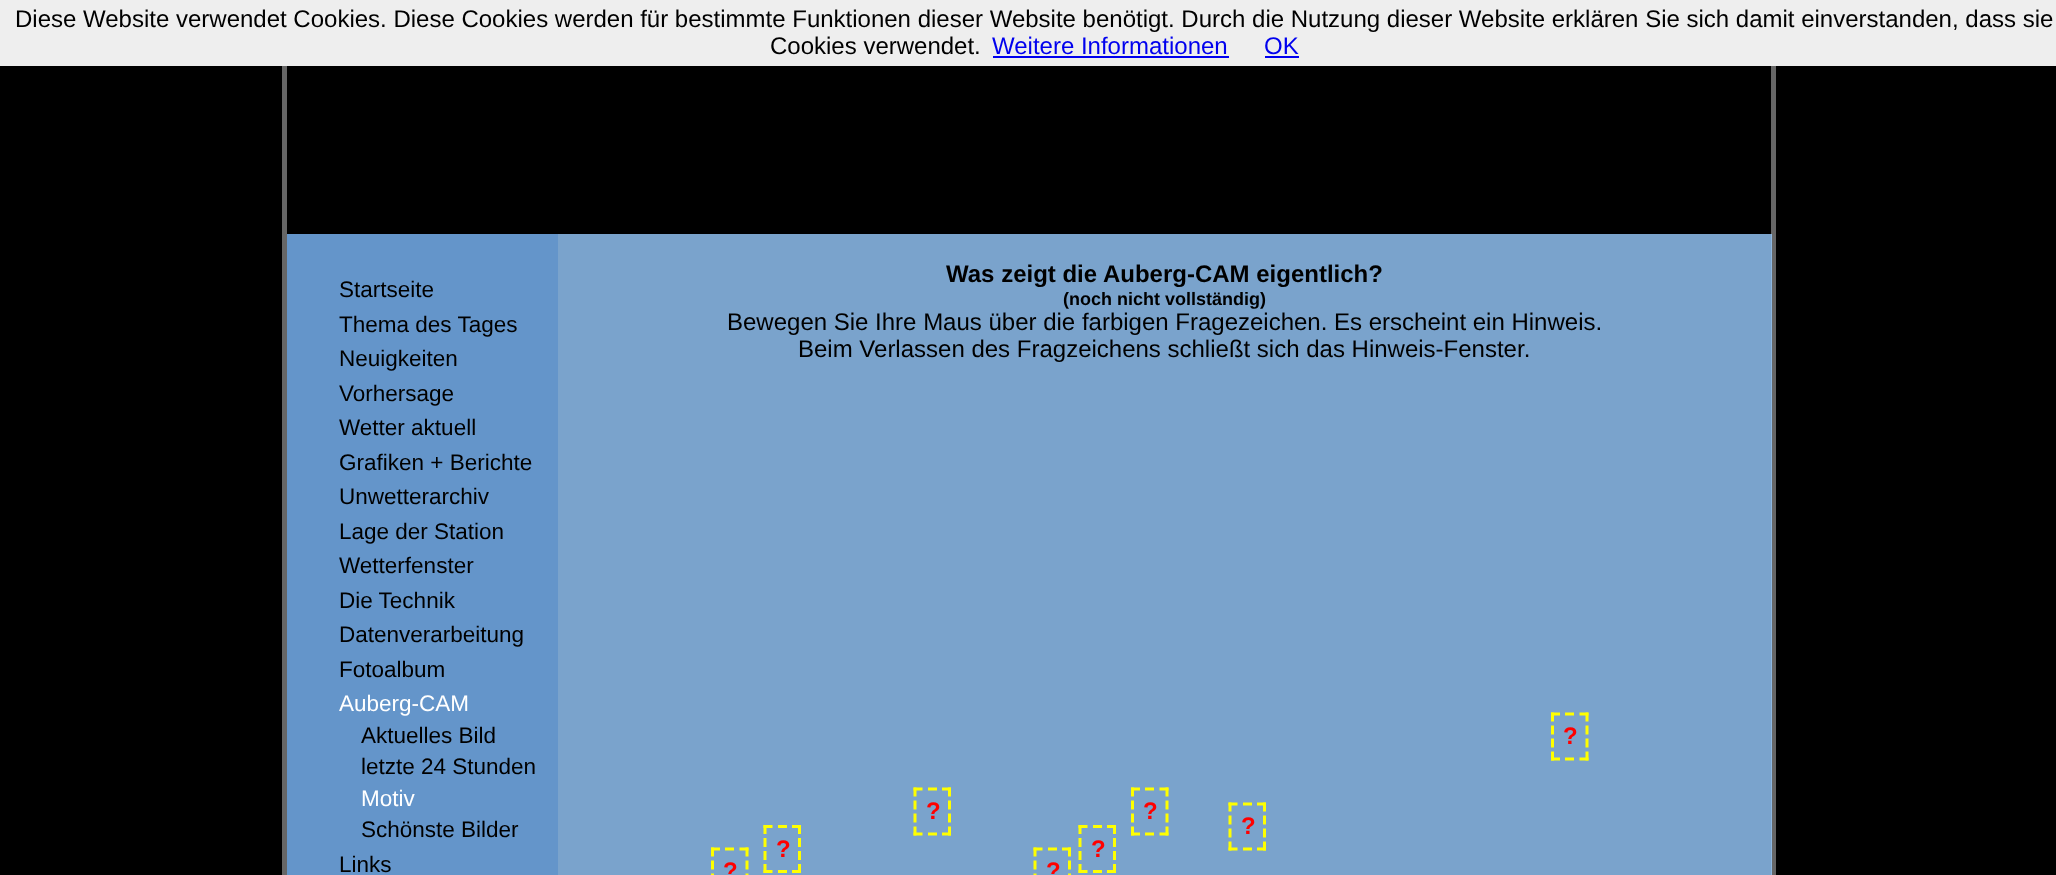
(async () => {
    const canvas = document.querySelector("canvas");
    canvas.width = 2056;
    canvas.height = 875;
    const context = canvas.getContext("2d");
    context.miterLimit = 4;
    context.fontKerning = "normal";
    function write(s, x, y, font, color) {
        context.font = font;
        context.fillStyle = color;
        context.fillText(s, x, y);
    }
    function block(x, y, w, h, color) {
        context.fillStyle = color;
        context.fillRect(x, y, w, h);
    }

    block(0, 0, 2056, 875, "rgb(0, 0, 0)");
    context.strokeStyle = "rgb(102, 102, 102)";
    context.lineWidth = 5;
    context.strokeRect(284.5, 29.5, 1489, 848);
    block(0, 0, 2056, 66, "rgb(238, 238, 238)");
    write("Diese Website verwendet Cookies. Diese Cookies werden für bestimmte Funktionen dieser Website benötigt. Durch die Nutzung dieser Website erklären Sie sich damit einverstanden, dass sie", 15, 27, "24px Liberation Sans", "rgb(0, 0, 0)");
    write("Cookies verwendet.", 770, 54, "24px Liberation Sans", "rgb(0, 0, 0)");
    write("Weitere Informationen", 992, 54, "24px Liberation Sans", "rgb(0, 0, 238)");
    block(993, 56, 236, 2, "rgb(0, 0, 238)");
    write("OK", 1264, 54, "24px Liberation Sans", "rgb(0, 0, 238)");
    block(1265, 56, 34, 2, "rgb(0, 0, 238)");
    block(287, 234, 271, 641, "rgb(100, 149, 202)");
    write("Startseite", 339, 297, "22.5px Liberation Sans", "rgb(0, 0, 0)");
    write("Thema des Tages", 339, 332, "22.5px Liberation Sans", "rgb(0, 0, 0)");
    write("Neuigkeiten", 339, 366, "22.5px Liberation Sans", "rgb(0, 0, 0)");
    write("Vorhersage", 339, 401, "22.5px Liberation Sans", "rgb(0, 0, 0)");
    write("Wetter aktuell", 339, 435, "22.5px Liberation Sans", "rgb(0, 0, 0)");
    write("Grafiken + Berichte", 339, 470, "22.5px Liberation Sans", "rgb(0, 0, 0)");
    write("Unwetterarchiv", 339, 504, "22.5px Liberation Sans", "rgb(0, 0, 0)");
    write("Lage der Station", 339, 539, "22.5px Liberation Sans", "rgb(0, 0, 0)");
    write("Wetterfenster", 339, 573, "22.5px Liberation Sans", "rgb(0, 0, 0)");
    write("Die Technik", 339, 608, "22.5px Liberation Sans", "rgb(0, 0, 0)");
    write("Datenverarbeitung", 339, 642, "22.5px Liberation Sans", "rgb(0, 0, 0)");
    write("Fotoalbum", 339, 677, "22.5px Liberation Sans", "rgb(0, 0, 0)");
    write("Auberg-CAM", 339, 711, "22.5px Liberation Sans", "rgb(255, 255, 255)");
    write("Aktuelles Bild", 361, 743, "22.5px Liberation Sans", "rgb(0, 0, 0)");
    write("letzte 24 Stunden", 361, 774, "22.5px Liberation Sans", "rgb(0, 0, 0)");
    write("Motiv", 361, 806, "22.5px Liberation Sans", "rgb(255, 255, 255)");
    write("Schönste Bilder", 361, 837, "22.5px Liberation Sans", "rgb(0, 0, 0)");
    write("Links", 339, 872, "22.5px Liberation Sans", "rgb(0, 0, 0)");
    block(558, 234, 1214, 641, "rgba(153, 204, 255, 0.8)");
    write("Was zeigt die Auberg-CAM eigentlich?", 946, 282, "bold 24px Liberation Sans", "rgb(0, 0, 0)");
    write("(noch nicht vollständig)", 1063, 305, "bold 18px Liberation Sans", "rgb(0, 0, 0)");
    write("Bewegen Sie Ihre Maus über die farbigen Fragezeichen. Es erscheint ein Hinweis.", 727, 330, "24px Liberation Sans", "rgb(0, 0, 0)");
    write("Beim Verlassen des Fragzeichens schließt sich das Hinweis-Fenster.", 798, 357, "24px Liberation Sans", "rgb(0, 0, 0)");
    context.beginPath();
    context.moveTo(1551, 714);
    context.lineTo(1560, 714);
    context.moveTo(1565, 714);
    context.lineTo(1574, 714);
    context.moveTo(1579.5, 714);
    context.lineTo(1588.5, 714);
    context.strokeStyle = "rgb(255, 255, 0)";
    context.lineWidth = 3;
    context.stroke();
    context.beginPath();
    context.moveTo(1587, 712.5);
    context.lineTo(1587, 760.5);
    context.setLineDash([9, 4]);
    context.stroke();
    context.beginPath();
    context.moveTo(1551, 759);
    context.lineTo(1560, 759);
    context.moveTo(1565, 759);
    context.lineTo(1574, 759);
    context.moveTo(1579.5, 759);
    context.lineTo(1588.5, 759);
    context.setLineDash([]);
    context.stroke();
    context.beginPath();
    context.moveTo(1552.5, 712.5);
    context.lineTo(1552.5, 760.5);
    context.setLineDash([9, 4]);
    context.stroke();
    write("?", 1563, 744, "bold 24px Liberation Sans", "rgb(255, 0, 0)");
    context.beginPath();
    context.moveTo(913.5, 789);
    context.lineTo(922.5, 789);
    context.moveTo(928, 789);
    context.lineTo(937, 789);
    context.moveTo(942, 789);
    context.lineTo(951, 789);
    context.setLineDash([]);
    context.stroke();
    context.beginPath();
    context.moveTo(949.5, 787.5);
    context.lineTo(949.5, 835.5);
    context.setLineDash([9, 4]);
    context.stroke();
    context.beginPath();
    context.moveTo(913.5, 834);
    context.lineTo(922.5, 834);
    context.moveTo(928, 834);
    context.lineTo(937, 834);
    context.moveTo(942, 834);
    context.lineTo(951, 834);
    context.setLineDash([]);
    context.stroke();
    context.beginPath();
    context.moveTo(915, 787.5);
    context.lineTo(915, 835.5);
    context.setLineDash([9, 4]);
    context.stroke();
    write("?", 926, 819, "bold 24px Liberation Sans", "rgb(255, 0, 0)");
    context.beginPath();
    context.moveTo(1131, 789);
    context.lineTo(1140, 789);
    context.moveTo(1145, 789);
    context.lineTo(1154, 789);
    context.moveTo(1159.5, 789);
    context.lineTo(1168.5, 789);
    context.setLineDash([]);
    context.stroke();
    context.beginPath();
    context.moveTo(1167, 787.5);
    context.lineTo(1167, 835.5);
    context.setLineDash([9, 4]);
    context.stroke();
    context.beginPath();
    context.moveTo(1131, 834);
    context.lineTo(1140, 834);
    context.moveTo(1145, 834);
    context.lineTo(1154, 834);
    context.moveTo(1159.5, 834);
    context.lineTo(1168.5, 834);
    context.setLineDash([]);
    context.stroke();
    context.beginPath();
    context.moveTo(1132.5, 787.5);
    context.lineTo(1132.5, 835.5);
    context.setLineDash([9, 4]);
    context.stroke();
    write("?", 1143, 819, "bold 24px Liberation Sans", "rgb(255, 0, 0)");
    context.beginPath();
    context.moveTo(1228.5, 804);
    context.lineTo(1237.5, 804);
    context.moveTo(1243, 804);
    context.lineTo(1252, 804);
    context.moveTo(1257, 804);
    context.lineTo(1266, 804);
    context.setLineDash([]);
    context.stroke();
    context.beginPath();
    context.moveTo(1264.5, 802.5);
    context.lineTo(1264.5, 850.5);
    context.setLineDash([9, 4]);
    context.stroke();
    context.beginPath();
    context.moveTo(1228.5, 849);
    context.lineTo(1237.5, 849);
    context.moveTo(1243, 849);
    context.lineTo(1252, 849);
    context.moveTo(1257, 849);
    context.lineTo(1266, 849);
    context.setLineDash([]);
    context.stroke();
    context.beginPath();
    context.moveTo(1230, 802.5);
    context.lineTo(1230, 850.5);
    context.setLineDash([9, 4]);
    context.stroke();
    write("?", 1241, 834, "bold 24px Liberation Sans", "rgb(255, 0, 0)");
    context.beginPath();
    context.moveTo(763.5, 826.5);
    context.lineTo(772.5, 826.5);
    context.moveTo(778, 826.5);
    context.lineTo(787, 826.5);
    context.moveTo(792, 826.5);
    context.lineTo(801, 826.5);
    context.setLineDash([]);
    context.stroke();
    context.beginPath();
    context.moveTo(799.5, 825);
    context.lineTo(799.5, 873);
    context.setLineDash([9, 4]);
    context.stroke();
    context.beginPath();
    context.moveTo(763.5, 871.5);
    context.lineTo(772.5, 871.5);
    context.moveTo(778, 871.5);
    context.lineTo(787, 871.5);
    context.moveTo(792, 871.5);
    context.lineTo(801, 871.5);
    context.setLineDash([]);
    context.stroke();
    context.beginPath();
    context.moveTo(765, 825);
    context.lineTo(765, 873);
    context.setLineDash([9, 4]);
    context.stroke();
    write("?", 776, 857, "bold 24px Liberation Sans", "rgb(255, 0, 0)");
    context.beginPath();
    context.moveTo(1078.5, 826.5);
    context.lineTo(1087.5, 826.5);
    context.moveTo(1093, 826.5);
    context.lineTo(1102, 826.5);
    context.moveTo(1107, 826.5);
    context.lineTo(1116, 826.5);
    context.setLineDash([]);
    context.stroke();
    context.beginPath();
    context.moveTo(1114.5, 825);
    context.lineTo(1114.5, 873);
    context.setLineDash([9, 4]);
    context.stroke();
    context.beginPath();
    context.moveTo(1078.5, 871.5);
    context.lineTo(1087.5, 871.5);
    context.moveTo(1093, 871.5);
    context.lineTo(1102, 871.5);
    context.moveTo(1107, 871.5);
    context.lineTo(1116, 871.5);
    context.setLineDash([]);
    context.stroke();
    context.beginPath();
    context.moveTo(1080, 825);
    context.lineTo(1080, 873);
    context.setLineDash([9, 4]);
    context.stroke();
    write("?", 1091, 857, "bold 24px Liberation Sans", "rgb(255, 0, 0)");
    context.beginPath();
    context.moveTo(711, 849);
    context.lineTo(720, 849);
    context.moveTo(725, 849);
    context.lineTo(734, 849);
    context.moveTo(739.5, 849);
    context.lineTo(748.5, 849);
    context.setLineDash([]);
    context.stroke();
    context.beginPath();
    context.moveTo(747, 847.5);
    context.lineTo(747, 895.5);
    context.moveTo(712.5, 847.5);
    context.lineTo(712.5, 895.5);
    context.setLineDash([9, 4]);
    context.stroke();
    write("?", 723, 879, "bold 24px Liberation Sans", "rgb(255, 0, 0)");
    context.beginPath();
    context.moveTo(1033.5, 849);
    context.lineTo(1042.5, 849);
    context.moveTo(1048, 849);
    context.lineTo(1057, 849);
    context.moveTo(1062, 849);
    context.lineTo(1071, 849);
    context.setLineDash([]);
    context.stroke();
    context.beginPath();
    context.moveTo(1069.5, 847.5);
    context.lineTo(1069.5, 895.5);
    context.moveTo(1035, 847.5);
    context.lineTo(1035, 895.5);
    context.setLineDash([9, 4]);
    context.stroke();
    write("?", 1046, 879, "bold 24px Liberation Sans", "rgb(255, 0, 0)");
})();
